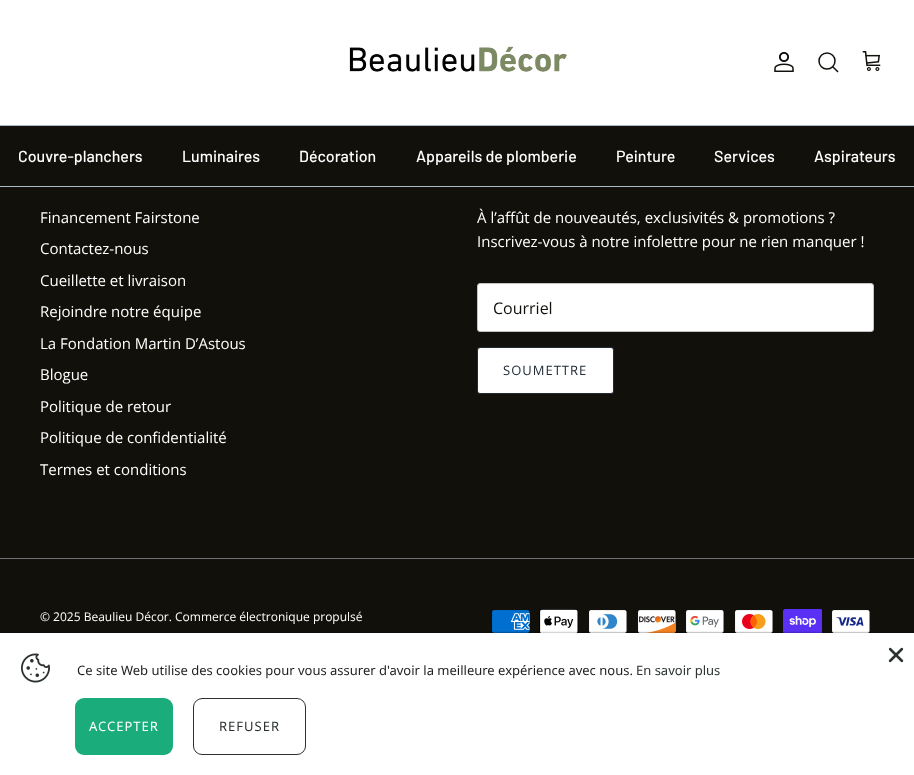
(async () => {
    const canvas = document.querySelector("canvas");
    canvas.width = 914;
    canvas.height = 775;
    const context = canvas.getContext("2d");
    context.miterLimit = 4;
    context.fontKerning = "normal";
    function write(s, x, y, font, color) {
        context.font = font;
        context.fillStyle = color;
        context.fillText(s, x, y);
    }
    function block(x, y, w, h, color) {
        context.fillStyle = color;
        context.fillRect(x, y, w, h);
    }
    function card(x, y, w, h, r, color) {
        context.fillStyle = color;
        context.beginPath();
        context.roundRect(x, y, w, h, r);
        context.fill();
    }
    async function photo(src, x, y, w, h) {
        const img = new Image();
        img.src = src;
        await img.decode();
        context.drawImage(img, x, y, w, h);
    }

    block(0, 0, 914, 775, "rgb(18, 16, 11)");
    block(0, 0, 914, 125, "rgb(255, 255, 255)");
    block(0, 125, 914, 1, "rgb(173, 186, 201)");
    await photo("media/1.png", 349, 46, 218, 26);
    await photo("media/2.png", 774, 52, 20, 20);
    context.beginPath();
    context.arc(827, 61, 8, 0, Math.PI * 2);
    context.strokeStyle = "rgb(18, 16, 11)";
    context.lineWidth = 1.5;
    context.stroke();
    context.beginPath();
    context.moveTo(833, 67);
    context.lineTo(837.5, 71.5);
    context.lineCap = "square";
    context.stroke();
    await photo("media/3.png", 862, 51, 19, 20);
    block(0, 186, 914, 1, "rgb(173, 186, 201)");
    write("Couvre-planchers", 18, 162, "500 16px Barlow", "rgb(255, 255, 255)");
    write("Luminaires", 182, 162, "500 16px Barlow", "rgb(255, 255, 255)");
    write("Décoration", 299, 162, "500 16px Barlow", "rgb(255, 255, 255)");
    write("Appareils de plomberie", 416, 162, "500 16px Barlow", "rgb(255, 255, 255)");
    write("Peinture", 616, 162, "500 16px Barlow", "rgb(255, 255, 255)");
    write("Services", 714, 162, "500 16px Barlow", "rgb(255, 255, 255)");
    write("Aspirateurs", 814, 162, "500 16px Barlow", "rgb(255, 255, 255)");
    write("Financement Fairstone", 40, 223, "15px Open Sans", "rgb(255, 255, 255)");
    write("Contactez-nous", 40, 254, "15px Open Sans", "rgb(255, 255, 255)");
    write("Cueillette et livraison", 40, 286, "15px Open Sans", "rgb(255, 255, 255)");
    write("Rejoindre notre équipe", 40, 317, "15px Open Sans", "rgb(255, 255, 255)");
    write("La Fondation Martin D’Astous", 40, 349, "15px Open Sans", "rgb(255, 255, 255)");
    write("Blogue", 40, 380, "15px Open Sans", "rgb(255, 255, 255)");
    write("Politique de retour", 40, 412, "15px Open Sans", "rgb(255, 255, 255)");
    write("Politique de confidentialité", 40, 443, "15px Open Sans", "rgb(255, 255, 255)");
    write("Termes et conditions", 40, 475, "15px Open Sans", "rgb(255, 255, 255)");
    write("À l’affût de nouveautés, exclusivités & promotions ?", 477, 223, "15px Open Sans", "rgb(255, 255, 255)");
    write("Inscrivez-vous à notre infolettre pour ne rien manquer !", 477, 247, "15px Open Sans", "rgb(255, 255, 255)");
    context.beginPath();
    context.roundRect(477.5, 283.5, 396, 48, 2.5);
    context.fill();
    context.strokeStyle = "rgb(196, 195, 194)";
    context.lineWidth = 1;
    context.stroke();
    write("Courriel", 493, 314, "16px Open Sans", "rgb(18, 16, 11)");
    context.fillStyle = "rgb(255, 255, 255)";
    context.beginPath();
    context.roundRect(477.5, 347.5, 136, 46, 2.5);
    context.fill();
    context.strokeStyle = "rgb(33, 43, 54)";
    context.stroke();
    context.letterSpacing = "1px";
    write("SOUMETTRE", 503, 375, "13px Open Sans", "rgb(33, 43, 54)");
    block(0, 558, 914, 1, "rgb(112, 113, 115)");
    context.letterSpacing = "0px";
    write("© 2025 Beaulieu Décor. Commerce électronique propulsé", 40, 621, "12px Open Sans", "rgb(255, 255, 255)");
    await photo("media/4.png", 492, 610, 38, 23);
    await photo("media/5.png", 539, 609, 40, 24);
    await photo("media/6.png", 589, 610, 38, 23);
    await photo("media/7.png", 638, 610, 38, 23);
    await photo("media/8.png", 686, 610, 38, 23);
    await photo("media/9.png", 735, 610, 38, 23);
    await photo("media/10.png", 783, 609, 39, 24);
    await photo("media/11.png", 832, 610, 38, 23);
    context.fillStyle = "rgba(0, 0, 0, 0.5)";
    context.filter = "blur(1px)";
    context.beginPath();
    context.rect(0, 633, 914, 142);
    context.fill();
    context.filter = "none";
    block(0, 633, 914, 142, "rgb(255, 255, 255)");
    await photo("media/12.png", 888, 647, 16, 16);
    await photo("media/13.png", 21, 653, 29, 30);
    write("Ce site Web utilise des cookies pour vous assurer d'avoir la meilleure expérience avec nous.", 77, 675, "13px Noto Sans", "rgb(29, 29, 29)");
    write("En savoir plus", 636, 675, "13px Noto Sans", "rgb(44, 51, 47)");
    card(75, 698, 98, 57, 9, "rgb(26, 172, 122)");
    context.letterSpacing = "1px";
    write("ACCEPTER", 89, 731, "13px Noto Sans", "rgb(255, 255, 255)");
    context.beginPath();
    context.roundRect(193.5, 698.5, 112, 56, 8.5);
    context.strokeStyle = "rgb(44, 51, 47)";
    context.stroke();
    write("REFUSER", 219, 731, "13px Noto Sans", "rgb(44, 51, 47)");
})();
